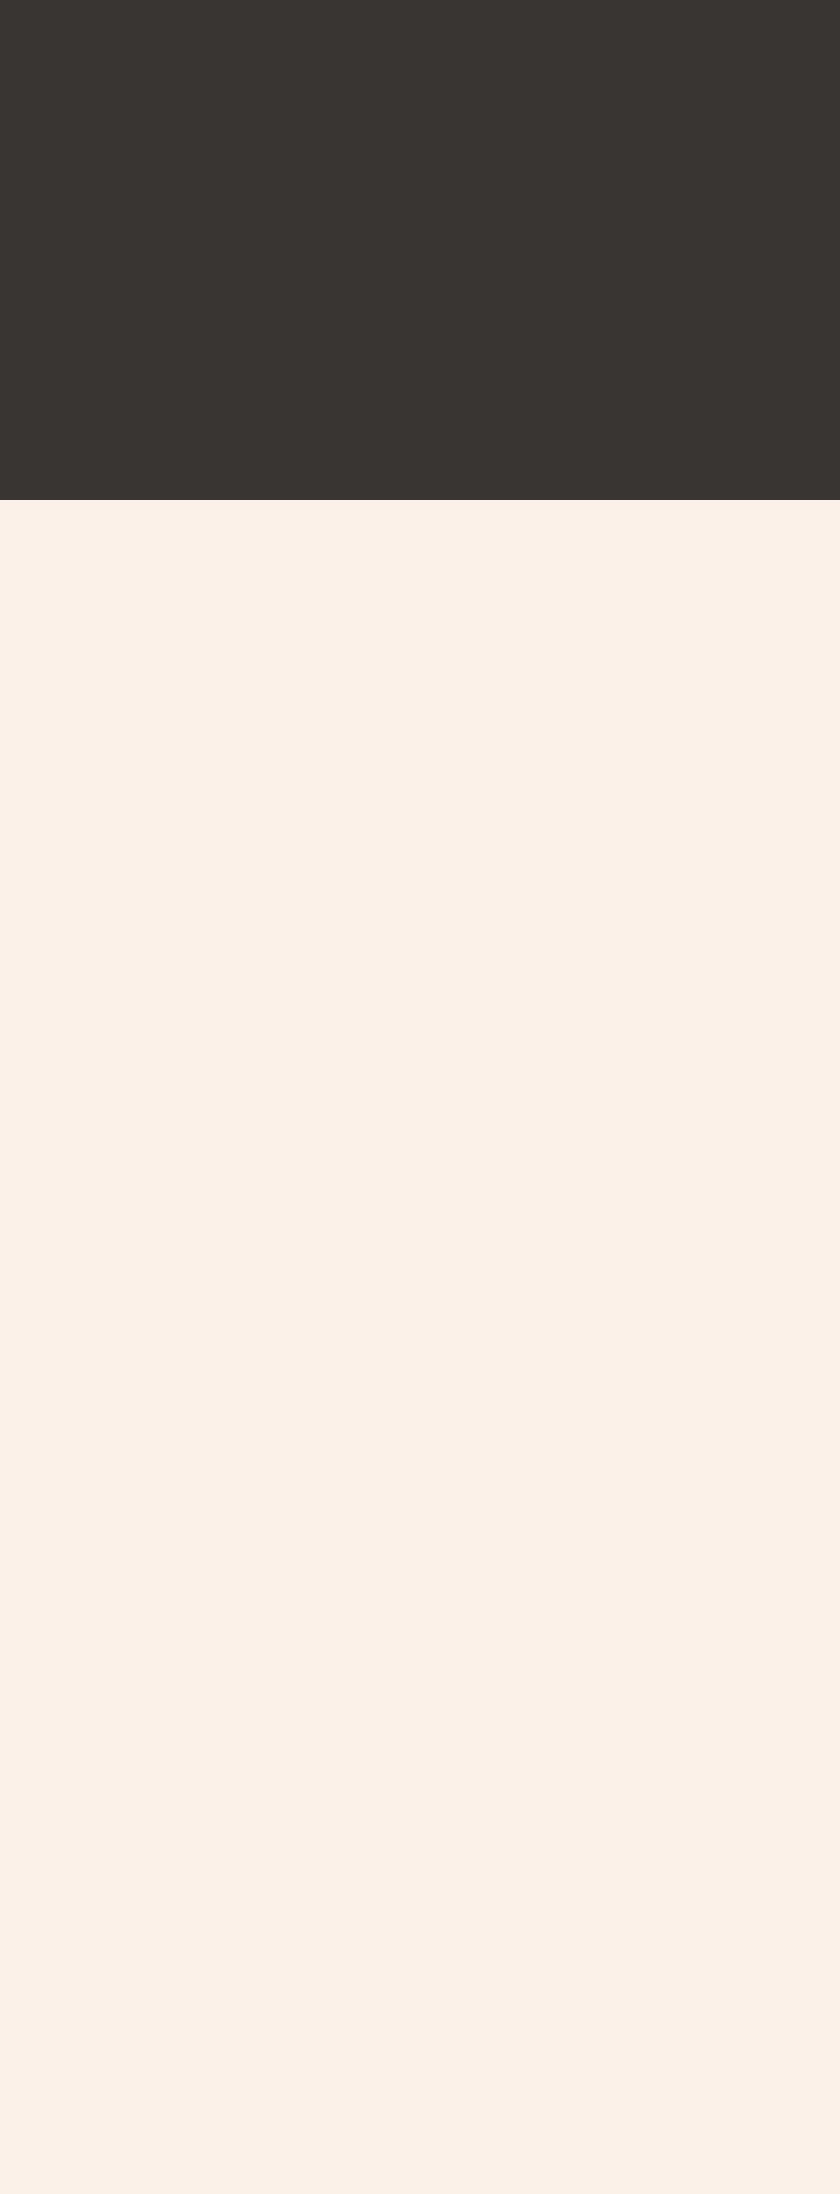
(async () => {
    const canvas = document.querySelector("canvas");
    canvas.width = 840;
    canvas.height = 2194;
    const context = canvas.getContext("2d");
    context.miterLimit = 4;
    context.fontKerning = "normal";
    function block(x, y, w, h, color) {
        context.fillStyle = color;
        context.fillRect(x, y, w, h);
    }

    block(0, 0, 840, 2194, "rgb(252, 241, 233)");
    block(0, 0, 840, 500, "rgb(56, 53, 51)");
})();
